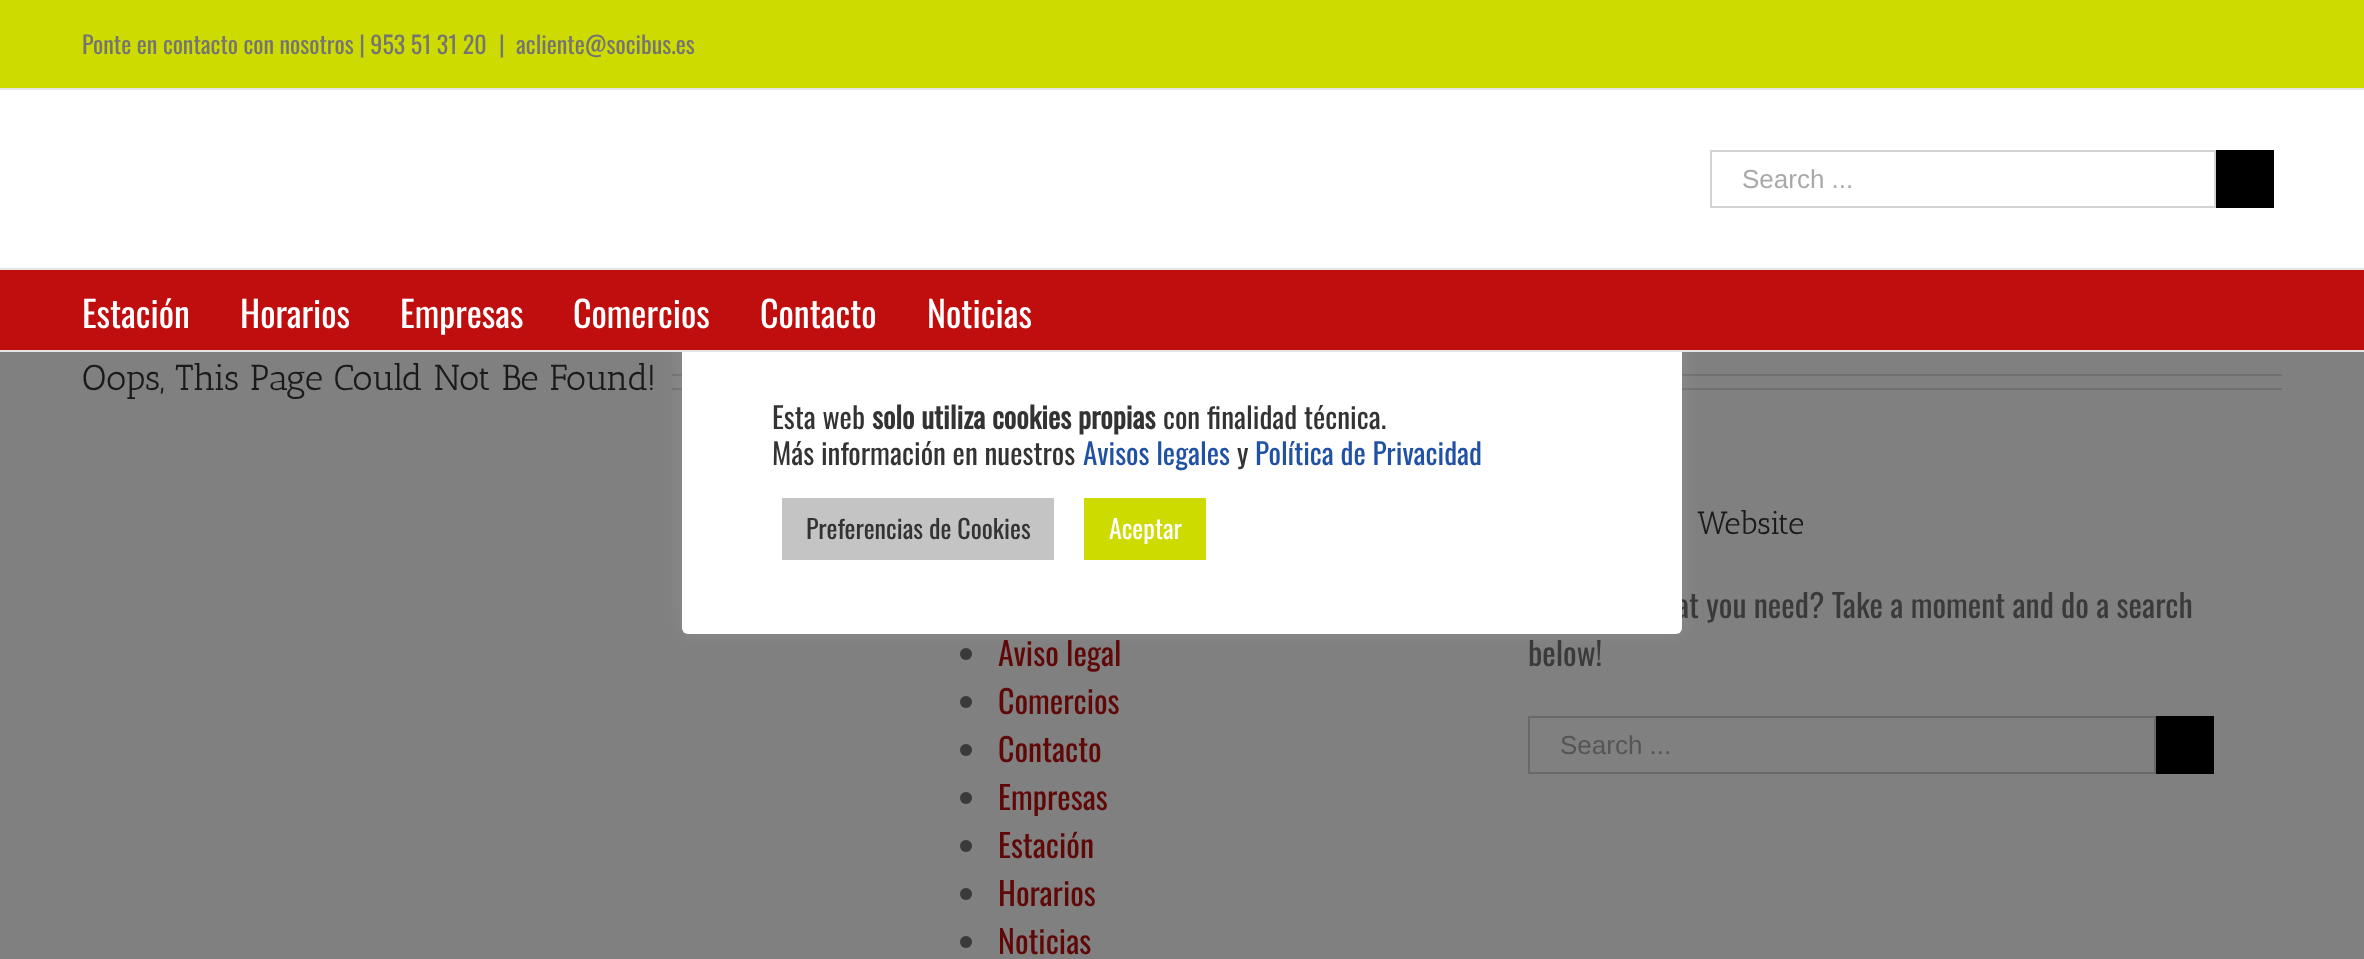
(async () => {
    const canvas = document.querySelector("canvas");
    canvas.width = 2364;
    canvas.height = 959;
    const context = canvas.getContext("2d");
    context.miterLimit = 4;
    context.fontKerning = "normal";
    function write(s, x, y, font, color) {
        context.font = font;
        context.fillStyle = color;
        context.fillText(s, x, y);
    }
    function block(x, y, w, h, color) {
        context.fillStyle = color;
        context.fillRect(x, y, w, h);
    }
    function card(x, y, w, h, r, color) {
        context.fillStyle = color;
        context.beginPath();
        context.roundRect(x, y, w, h, r);
        context.fill();
    }

    block(0, 0, 2364, 959, "rgb(128, 128, 128)");
    block(0, 0, 2364, 88, "rgb(206, 219, 0)");
    block(0, 88, 2364, 2, "rgb(229, 229, 229)");
    write("Ponte en contacto con nosotros | 953 51 31 20", 82, 54, "24px Oswald", "rgb(116, 116, 116)");
    write("|", 499, 54, "24px Oswald", "rgb(116, 116, 116)");
    write("acliente@socibus.es", 516, 54, "24px Oswald", "rgb(116, 116, 116)");
    block(0, 90, 2364, 178, "rgb(255, 255, 255)");
    block(0, 268, 2364, 2, "rgb(229, 229, 229)");
    context.strokeStyle = "rgb(210, 210, 210)";
    context.lineWidth = 2;
    context.strokeRect(1711, 151, 504, 56);
    write("Search ...", 1742, 188, "26px Liberation Sans", "rgb(170, 169, 169)");
    block(2216, 150, 58, 58, "rgb(0, 0, 0)");
    block(672, 374, 1610, 2, "rgb(112, 111, 111)");
    block(672, 388, 1610, 2, "rgb(112, 111, 111)");
    context.fillStyle = "rgb(58, 58, 58)";
    context.beginPath();
    context.arc(966, 654, 6, 0, Math.PI * 2);
    context.fill();
    context.fillStyle = "rgba(172, 171, 171, 0.3)";
    context.filter = "blur(10px)";
    context.beginPath();
    context.roundRect(682, 334, 1000, 298, 6);
    context.fill();
    context.filter = "none";
    write("at you need? Take a moment and do a search", 1676, 618, "32px Oswald", "rgb(58, 58, 58)");
    card(682, 336, 1000, 298, 6, "rgb(255, 255, 255)");
    block(0, 270, 2364, 80, "rgb(192, 13, 13)");
    block(0, 350, 2364, 2, "rgb(229, 229, 229)");
    write("Estación", 82, 328, "36px Oswald", "rgb(255, 255, 255)");
    write("Horarios", 240, 328, "36px Oswald", "rgb(255, 255, 255)");
    write("Empresas", 400, 328, "36px Oswald", "rgb(255, 255, 255)");
    write("Comercios", 573, 328, "36px Oswald", "rgb(255, 255, 255)");
    write("Contacto", 760, 328, "36px Oswald", "rgb(255, 255, 255)");
    write("Noticias", 927, 328, "36px Oswald", "rgb(255, 255, 255)");
    write("Oops, This Page Could Not Be Found!", 82, 390, "36px Antic Slab", "rgb(26, 26, 26)");
    write("Aviso legal", 998, 666, "32px Oswald", "rgb(96, 7, 7)");
    context.fillStyle = "rgb(58, 58, 58)";
    context.beginPath();
    context.arc(966, 702, 6, 0, Math.PI * 2);
    context.fill();
    write("Comercios", 998, 714, "32px Oswald", "rgb(96, 7, 7)");
    context.fillStyle = "rgb(58, 58, 58)";
    context.beginPath();
    context.arc(966, 750, 6, 0, Math.PI * 2);
    context.fill();
    write("Contacto", 998, 762, "32px Oswald", "rgb(96, 7, 7)");
    context.fillStyle = "rgb(58, 58, 58)";
    context.beginPath();
    context.arc(966, 798, 6, 0, Math.PI * 2);
    context.fill();
    write("Empresas", 998, 810, "32px Oswald", "rgb(96, 7, 7)");
    context.fillStyle = "rgb(58, 58, 58)";
    context.beginPath();
    context.arc(966, 846, 6, 0, Math.PI * 2);
    context.fill();
    write("Estación", 998, 858, "32px Oswald", "rgb(96, 7, 7)");
    context.fillStyle = "rgb(58, 58, 58)";
    context.beginPath();
    context.arc(966, 894, 6, 0, Math.PI * 2);
    context.fill();
    write("Horarios", 998, 906, "32px Oswald", "rgb(96, 7, 7)");
    context.fillStyle = "rgb(58, 58, 58)";
    context.beginPath();
    context.arc(966, 942, 6, 0, Math.PI * 2);
    context.fill();
    write("Noticias", 998, 954, "32px Oswald", "rgb(96, 7, 7)");
    write("Website", 1697, 534, "32px Antic Slab", "rgb(26, 26, 26)");
    write("below!", 1528, 666, "32px Oswald", "rgb(58, 58, 58)");
    context.strokeStyle = "rgb(105, 105, 105)";
    context.strokeRect(1529, 717, 626, 56);
    write("Search ...", 1560, 754, "26px Liberation Sans", "rgb(85, 85, 85)");
    block(2156, 716, 58, 58, "rgb(0, 0, 0)");
    write("Esta web", 772, 429, "29.25px Oswald", "rgb(51, 51, 51)");
    write("solo utiliza cookies propias", 872, 429, "bold 29.25px Oswald", "rgb(51, 51, 51)");
    write("con finalidad técnica.", 1163, 429, "29.25px Oswald", "rgb(51, 51, 51)");
    write("Más información en nuestros", 772, 465, "29.25px Oswald", "rgb(51, 51, 51)");
    write("Avisos legales", 1083, 465, "29.25px Oswald", "rgb(33, 81, 165)");
    write("y", 1237, 465, "29.25px Oswald", "rgb(51, 51, 51)");
    write("Política de Privacidad", 1255, 465, "29.25px Oswald", "rgb(33, 81, 165)");
    block(782, 498, 272, 62, "rgb(196, 196, 196)");
    write("Preferencias de Cookies", 806, 539, "26px Oswald", "rgb(51, 51, 51)");
    block(1084, 498, 122, 62, "rgb(206, 219, 0)");
    write("Aceptar", 1109, 539, "26px Oswald", "rgb(255, 255, 255)");
})();
